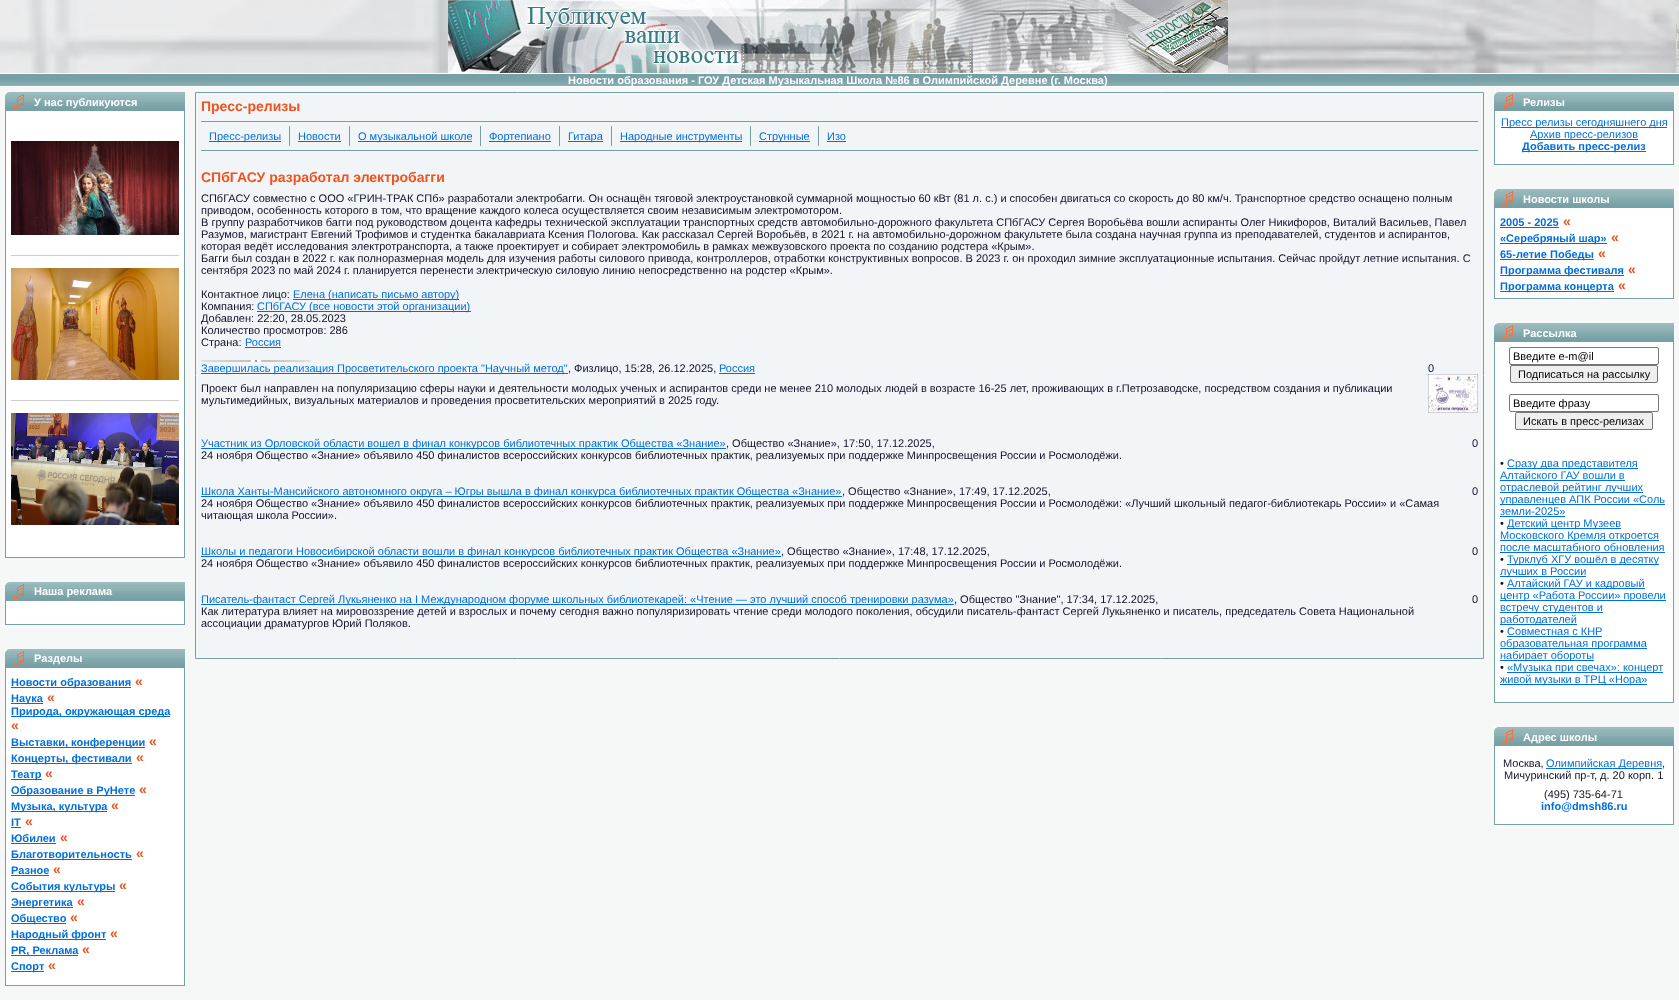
(async () => {
    const canvas = document.querySelector("canvas");
    canvas.width = 1679;
    canvas.height = 1000;
    const context = canvas.getContext("2d");
    context.miterLimit = 4;
    context.fontKerning = "normal";
    function write(s, x, y, font, color) {
        context.font = font;
        context.fillStyle = color;
        context.fillText(s, x, y);
    }
    function block(x, y, w, h, color) {
        context.fillStyle = color;
        context.fillRect(x, y, w, h);
    }
    async function photo(src, x, y, w, h) {
        const img = new Image();
        img.src = src;
        await img.decode();
        context.drawImage(img, x, y, w, h);
    }

    block(0, 0, 1679, 1000, "rgb(255, 255, 255)");
    block(0, 0, 1679, 73, "rgb(221, 221, 221)");
    await photo("media/1.png", 0, 0, 1676, 73);
    await photo("media/2.png", 448, 0, 780, 73);
    await photo("media/3.png", 1676, 0, 3, 73);
    await photo("media/4.png", 0, 74, 1679, 12);
    write("Новости образования - ГОУ Детская Музыкальная Школа №86 в Олимпийской Деревне (г. Москва)", 568, 84, "bold 11px Liberation Sans", "rgb(255, 255, 255)");
    block(0, 87, 1679, 913, "rgb(246, 248, 248)");
    await photo("media/5.png", 5, 92, 180, 19);
    await photo("media/6.png", 5, 92, 19, 17);
    write("У нас публикуются", 34, 106, "bold 11px Liberation Sans", "rgb(255, 255, 255)");
    block(6, 111, 178, 446, "rgb(255, 255, 255)");
    block(184, 111, 1, 447, "rgb(118, 160, 165)");
    block(5, 557, 180, 1, "rgb(118, 160, 165)");
    block(5, 111, 1, 447, "rgb(118, 160, 165)");
    block(11, 255, 168, 1, "rgb(204, 204, 204)");
    await photo("media/7.png", 11, 141, 168, 94);
    block(11, 400, 168, 1, "rgb(204, 204, 204)");
    await photo("media/8.png", 11, 268, 168, 112);
    await photo("media/9.png", 11, 413, 168, 112);
    await photo("media/5.png", 5, 582, 180, 19);
    await photo("media/6.png", 5, 582, 19, 17);
    write("Наша реклама", 34, 595, "bold 11px Liberation Sans", "rgb(255, 255, 255)");
    block(6, 601, 178, 23, "rgb(255, 255, 255)");
    block(184, 601, 1, 24, "rgb(118, 160, 165)");
    block(5, 624, 180, 1, "rgb(118, 160, 165)");
    block(5, 601, 1, 24, "rgb(118, 160, 165)");
    await photo("media/5.png", 5, 649, 180, 19);
    await photo("media/6.png", 5, 649, 19, 17);
    write("Разделы", 34, 662, "bold 11px Liberation Sans", "rgb(255, 255, 255)");
    block(6, 668, 178, 317, "rgb(255, 255, 255)");
    block(184, 668, 1, 318, "rgb(118, 160, 165)");
    block(5, 985, 180, 1, "rgb(118, 160, 165)");
    block(5, 668, 1, 318, "rgb(118, 160, 165)");
    block(11, 687, 120, 1, "rgb(0, 111, 221)");
    write("Новости образования", 11, 686, "bold 11px Liberation Sans", "rgb(0, 111, 221)");
    write("«", 135, 686, "bold 14px Liberation Sans", "rgb(241, 83, 28)");
    block(11, 703, 32, 1, "rgb(0, 111, 221)");
    write("Наука", 11, 702, "bold 11px Liberation Sans", "rgb(0, 111, 221)");
    write("«", 47, 702, "bold 14px Liberation Sans", "rgb(241, 83, 28)");
    block(11, 716, 159, 1, "rgb(0, 111, 221)");
    write("Природа, окружающая среда", 11, 715, "bold 11px Liberation Sans", "rgb(0, 111, 221)");
    write("«", 11, 730, "bold 14px Liberation Sans", "rgb(241, 83, 28)");
    block(11, 747, 134, 1, "rgb(0, 111, 221)");
    write("Выставки, конференции", 11, 746, "bold 11px Liberation Sans", "rgb(0, 111, 221)");
    write("«", 149, 746, "bold 14px Liberation Sans", "rgb(241, 83, 28)");
    block(11, 763, 121, 1, "rgb(0, 111, 221)");
    write("Концерты, фестивали", 11, 762, "bold 11px Liberation Sans", "rgb(0, 111, 221)");
    write("«", 136, 762, "bold 14px Liberation Sans", "rgb(241, 83, 28)");
    block(11, 779, 31, 1, "rgb(0, 111, 221)");
    write("Театр", 11, 778, "bold 11px Liberation Sans", "rgb(0, 111, 221)");
    write("«", 45, 778, "bold 14px Liberation Sans", "rgb(241, 83, 28)");
    block(11, 795, 124, 1, "rgb(0, 111, 221)");
    write("Образование в РуНете", 11, 794, "bold 11px Liberation Sans", "rgb(0, 111, 221)");
    write("«", 139, 794, "bold 14px Liberation Sans", "rgb(241, 83, 28)");
    block(11, 811, 96, 1, "rgb(0, 111, 221)");
    write("Музыка, культура", 11, 810, "bold 11px Liberation Sans", "rgb(0, 111, 221)");
    write("«", 111, 810, "bold 14px Liberation Sans", "rgb(241, 83, 28)");
    write("IT", 11, 826, "bold 11px Liberation Sans", "rgb(0, 111, 221)");
    block(11, 827, 10, 1, "rgb(0, 111, 221)");
    write("«", 25, 826, "bold 14px Liberation Sans", "rgb(241, 83, 28)");
    write("Юбилеи", 11, 842, "bold 11px Liberation Sans", "rgb(0, 111, 221)");
    block(11, 843, 45, 1, "rgb(0, 111, 221)");
    write("«", 60, 842, "bold 14px Liberation Sans", "rgb(241, 83, 28)");
    block(11, 859, 121, 1, "rgb(0, 111, 221)");
    write("Благотворительность", 11, 858, "bold 11px Liberation Sans", "rgb(0, 111, 221)");
    write("«", 136, 858, "bold 14px Liberation Sans", "rgb(241, 83, 28)");
    write("Разное", 11, 874, "bold 11px Liberation Sans", "rgb(0, 111, 221)");
    block(11, 875, 38, 1, "rgb(0, 111, 221)");
    write("«", 53, 874, "bold 14px Liberation Sans", "rgb(241, 83, 28)");
    block(11, 891, 104, 1, "rgb(0, 111, 221)");
    write("Cобытия культуры", 11, 890, "bold 11px Liberation Sans", "rgb(0, 111, 221)");
    write("«", 119, 890, "bold 14px Liberation Sans", "rgb(241, 83, 28)");
    block(11, 907, 62, 1, "rgb(0, 111, 221)");
    write("Энергетика", 11, 906, "bold 11px Liberation Sans", "rgb(0, 111, 221)");
    write("«", 77, 906, "bold 14px Liberation Sans", "rgb(241, 83, 28)");
    block(11, 923, 55, 1, "rgb(0, 111, 221)");
    write("Общество", 11, 922, "bold 11px Liberation Sans", "rgb(0, 111, 221)");
    write("«", 70, 922, "bold 14px Liberation Sans", "rgb(241, 83, 28)");
    block(11, 939, 95, 1, "rgb(0, 111, 221)");
    write("Народный фронт", 11, 938, "bold 11px Liberation Sans", "rgb(0, 111, 221)");
    write("«", 110, 938, "bold 14px Liberation Sans", "rgb(241, 83, 28)");
    block(11, 955, 67, 1, "rgb(0, 111, 221)");
    write("PR, Реклама", 11, 954, "bold 11px Liberation Sans", "rgb(0, 111, 221)");
    write("«", 82, 954, "bold 14px Liberation Sans", "rgb(241, 83, 28)");
    block(11, 971, 33, 1, "rgb(0, 111, 221)");
    write("Спорт", 11, 970, "bold 11px Liberation Sans", "rgb(0, 111, 221)");
    write("«", 48, 970, "bold 14px Liberation Sans", "rgb(241, 83, 28)");
    context.fillStyle = "rgb(241, 245, 248)";
    context.beginPath();
    context.rect(195.5, 92.5, 1288, 566);
    context.fill();
    context.strokeStyle = "rgb(119, 160, 165)";
    context.stroke();
    write("Пресс-релизы", 201, 111, "bold 14px Liberation Sans", "rgb(241, 83, 28)");
    block(201, 121, 1277, 1, "rgb(119, 160, 165)");
    block(201, 150, 1277, 1, "rgb(119, 160, 165)");
    block(289, 126, 1, 20, "rgb(119, 160, 165)");
    block(209, 141, 72, 1, "rgb(0, 111, 221)");
    write("Пресс-релизы", 209, 140, "11px Liberation Sans", "rgb(0, 111, 221)");
    block(349, 126, 1, 20, "rgb(119, 160, 165)");
    write("Новости", 298, 140, "11px Liberation Sans", "rgb(0, 111, 221)");
    block(298, 141, 43, 1, "rgb(0, 111, 221)");
    block(480, 126, 1, 20, "rgb(119, 160, 165)");
    block(358, 141, 114, 1, "rgb(0, 111, 221)");
    write("О музыкальной школе", 358, 140, "11px Liberation Sans", "rgb(0, 111, 221)");
    block(559, 126, 1, 20, "rgb(119, 160, 165)");
    block(489, 141, 62, 1, "rgb(0, 111, 221)");
    write("Фортепиано", 489, 140, "11px Liberation Sans", "rgb(0, 111, 221)");
    block(611, 126, 1, 20, "rgb(119, 160, 165)");
    block(568, 141, 35, 1, "rgb(0, 111, 221)");
    write("Гитара", 568, 140, "11px Liberation Sans", "rgb(0, 111, 221)");
    block(750, 126, 1, 20, "rgb(119, 160, 165)");
    block(620, 141, 122, 1, "rgb(0, 111, 221)");
    write("Народные инструменты", 620, 140, "11px Liberation Sans", "rgb(0, 111, 221)");
    block(818, 126, 1, 20, "rgb(119, 160, 165)");
    block(759, 141, 51, 1, "rgb(0, 111, 221)");
    write("Струнные", 759, 140, "11px Liberation Sans", "rgb(0, 111, 221)");
    write("Изо", 827, 140, "11px Liberation Sans", "rgb(0, 111, 221)");
    block(827, 141, 19, 1, "rgb(0, 111, 221)");
    write("СПбГАСУ разработал электробагги", 201, 182, "bold 14px Liberation Sans", "rgb(241, 83, 28)");
    write("СПбГАСУ совместно с ООО «ГРИН-ТРАК СПб» разработали электробагги. Он оснащён тяговой электроустановкой суммарной мощностью 60 кВт (81 л. с.) и способен двигаться со скорость до 80 км/ч. Транспортное средство оснащено полным", 201, 202, "11px Liberation Sans", "rgb(17, 18, 40)");
    write("приводом, особенность которого в том, что вращение каждого колеса осуществляется своим независимым электромотором.", 201, 214, "11px Liberation Sans", "rgb(17, 18, 40)");
    write("В группу разработчиков багги под руководством доцента кафедры технической эксплуатации транспортных средств автомобильно-дорожного факультета СПбГАСУ Сергея Воробьёва вошли аспиранты Олег Никифоров, Виталий Васильев, Павел", 201, 226, "11px Liberation Sans", "rgb(17, 18, 40)");
    write("Разумов, магистрант Евгений Трофимов и студентка бакалавриата Ксения Пологова. Как рассказал Сергей Воробьёв, в 2021 г. на автомобильно-дорожном факультете была создана научная группа из преподавателей, студентов и аспирантов,", 201, 238, "11px Liberation Sans", "rgb(17, 18, 40)");
    write("которая ведёт исследования электротранспорта, а также проектирует и собирает электромобиль в рамках межвузовского проекта по созданию родстера «Крым».", 201, 250, "11px Liberation Sans", "rgb(17, 18, 40)");
    write("Багги был создан в 2022 г. как полноразмерная модель для изучения работы силового привода, контроллеров, отработки конструктивных вопросов. В 2023 г. он проходил зимние эксплуатационные испытания. Сейчас пройдут летние испытания. С", 201, 262, "11px Liberation Sans", "rgb(17, 18, 40)");
    write("сентября 2023 по май 2024 г. планируется перенести электрическую силовую линию непосредственно на родстер «Крым».", 201, 274, "11px Liberation Sans", "rgb(17, 18, 40)");
    write("Контактное лицо:", 201, 298, "11px Liberation Sans", "rgb(17, 18, 40)");
    block(293, 299, 166, 1, "rgb(0, 111, 221)");
    write("Елена (написать письмо автору)", 293, 298, "11px Liberation Sans", "rgb(0, 111, 221)");
    write("Компания:", 201, 310, "11px Liberation Sans", "rgb(17, 18, 40)");
    block(257, 311, 214, 1, "rgb(0, 111, 221)");
    write("СПбГАСУ (все новости этой организации)", 257, 310, "11px Liberation Sans", "rgb(0, 111, 221)");
    write("Добавлен: 22:20, 28.05.2023", 201, 322, "11px Liberation Sans", "rgb(17, 18, 40)");
    write("Количество просмотров: 286", 201, 334, "11px Liberation Sans", "rgb(17, 18, 40)");
    write("Страна:", 201, 346, "11px Liberation Sans", "rgb(17, 18, 40)");
    write("Россия", 245, 346, "11px Liberation Sans", "rgb(0, 111, 221)");
    block(245, 347, 36, 1, "rgb(0, 111, 221)");
    await photo("media/10.png", 201, 360, 110, 2);
    block(201, 373, 367, 1, "rgb(0, 111, 221)");
    write("Завершилась реализация Просветительского проекта \"Научный метод\"", 201, 372, "11px Liberation Sans", "rgb(0, 111, 221)");
    write(", Физлицо, 15:28, 26.12.2025,", 568, 372, "11px Liberation Sans", "rgb(17, 18, 40)");
    write("Россия", 719, 372, "11px Liberation Sans", "rgb(0, 111, 221)");
    block(719, 373, 36, 1, "rgb(0, 111, 221)");
    write("0", 1428, 372, "11px Liberation Sans", "rgb(17, 18, 40)");
    write("Проект был направлен на популяризацию сферы науки и деятельности молодых ученых и аспирантов среди не менее 210 молодых людей в возрасте 16-25 лет, проживающих в г.Петрозаводске, посредством создания и публикации", 201, 392, "11px Liberation Sans", "rgb(17, 18, 40)");
    write("мультимедийных, визуальных материалов и проведения просветительских мероприятий в 2025 году.", 201, 404, "11px Liberation Sans", "rgb(17, 18, 40)");
    await photo("media/11.png", 1428, 374, 50, 39);
    block(201, 448, 525, 1, "rgb(0, 111, 221)");
    write("Участник из Орловской области вошел в финал конкурсов библиотечных практик Общества «Знание»", 201, 447, "11px Liberation Sans", "rgb(0, 111, 221)");
    write(", Общество «Знание», 17:50, 17.12.2025,", 726, 447, "11px Liberation Sans", "rgb(17, 18, 40)");
    write("0", 1472, 447, "11px Liberation Sans", "rgb(17, 18, 40)");
    write("24 ноября Общество «Знание» объявило 450 финалистов всероссийских конкурсов библиотечных практик, реализуемых при поддержке Минпросвещения России и Росмолодёжи.", 201, 459, "11px Liberation Sans", "rgb(17, 18, 40)");
    block(201, 496, 641, 1, "rgb(0, 111, 221)");
    write("Школа Ханты-Мансийского автономного округа – Югры вышла в финал конкурса библиотечных практик Общества «Знание»", 201, 495, "11px Liberation Sans", "rgb(0, 111, 221)");
    write(", Общество «Знание», 17:49, 17.12.2025,", 842, 495, "11px Liberation Sans", "rgb(17, 18, 40)");
    write("0", 1472, 495, "11px Liberation Sans", "rgb(17, 18, 40)");
    write("24 ноября Общество «Знание» объявило 450 финалистов всероссийских конкурсов библиотечных практик, реализуемых при поддержке Минпросвещения России и Росмолодёжи: «Лучший школьный педагог-библиотекарь России» и «Самая", 201, 507, "11px Liberation Sans", "rgb(17, 18, 40)");
    write("читающая школа России».", 201, 519, "11px Liberation Sans", "rgb(17, 18, 40)");
    block(201, 556, 580, 1, "rgb(0, 111, 221)");
    write("Школы и педагоги Новосибирской области вошли в финал конкурсов библиотечных практик Общества «Знание»", 201, 555, "11px Liberation Sans", "rgb(0, 111, 221)");
    write(", Общество «Знание», 17:48, 17.12.2025,", 781, 555, "11px Liberation Sans", "rgb(17, 18, 40)");
    write("0", 1472, 555, "11px Liberation Sans", "rgb(17, 18, 40)");
    write("24 ноября Общество «Знание» объявило 450 финалистов всероссийских конкурсов библиотечных практик, реализуемых при поддержке Минпросвещения России и Росмолодёжи.", 201, 567, "11px Liberation Sans", "rgb(17, 18, 40)");
    block(201, 604, 753, 1, "rgb(0, 111, 221)");
    write("Писатель-фантаст Сергей Лукьяненко на I Международном форуме школьных библиотекарей: «Чтение — это лучший способ тренировки разума»", 201, 603, "11px Liberation Sans", "rgb(0, 111, 221)");
    write(", Общество \"Знание\", 17:34, 17.12.2025,", 954, 603, "11px Liberation Sans", "rgb(17, 18, 40)");
    write("0", 1472, 603, "11px Liberation Sans", "rgb(17, 18, 40)");
    write("Как литература влияет на мировоззрение детей и взрослых и почему сегодня важно популяризировать чтение среди молодого поколения, обсудили писатель-фантаст Сергей Лукьяненко и писатель, председатель Совета Национальной", 201, 615, "11px Liberation Sans", "rgb(17, 18, 40)");
    write("ассоциации драматургов Юрий Поляков.", 201, 627, "11px Liberation Sans", "rgb(17, 18, 40)");
    await photo("media/5.png", 1494, 92, 180, 19);
    await photo("media/6.png", 1494, 92, 19, 17);
    write("Релизы", 1523, 106, "bold 11px Liberation Sans", "rgb(255, 255, 255)");
    block(1495, 111, 178, 53, "rgb(255, 255, 255)");
    block(1673, 111, 1, 54, "rgb(118, 160, 165)");
    block(1494, 164, 180, 1, "rgb(118, 160, 165)");
    block(1494, 111, 1, 54, "rgb(118, 160, 165)");
    block(1501, 127, 166, 1, "rgb(0, 111, 221)");
    write("Пресс релизы сегодняшнего дня", 1501, 126, "11px Liberation Sans", "rgb(0, 111, 221)");
    block(1530, 139, 108, 1, "rgb(0, 111, 221)");
    write("Архив пресс-релизов", 1530, 138, "11px Liberation Sans", "rgb(0, 111, 221)");
    block(1522, 151, 124, 1, "rgb(0, 111, 221)");
    write("Добавить пресс-релиз", 1522, 150, "bold 11px Liberation Sans", "rgb(0, 111, 221)");
    await photo("media/5.png", 1494, 189, 180, 19);
    await photo("media/6.png", 1494, 189, 19, 17);
    write("Новости школы", 1523, 203, "bold 11px Liberation Sans", "rgb(255, 255, 255)");
    block(1495, 208, 178, 90, "rgb(255, 255, 255)");
    block(1673, 208, 1, 91, "rgb(118, 160, 165)");
    block(1494, 298, 180, 1, "rgb(118, 160, 165)");
    block(1494, 208, 1, 91, "rgb(118, 160, 165)");
    write("2005 - 2025", 1500, 226, "bold 11px Liberation Sans", "rgb(0, 111, 221)");
    block(1500, 227, 59, 1, "rgb(0, 111, 221)");
    write("«", 1563, 226, "bold 14px Liberation Sans", "rgb(241, 83, 28)");
    block(1500, 243, 107, 1, "rgb(0, 111, 221)");
    write("«Серебряный шар»", 1500, 242, "bold 11px Liberation Sans", "rgb(0, 111, 221)");
    write("«", 1611, 242, "bold 14px Liberation Sans", "rgb(241, 83, 28)");
    block(1500, 259, 94, 1, "rgb(0, 111, 221)");
    write("65-летие Победы", 1500, 258, "bold 11px Liberation Sans", "rgb(0, 111, 221)");
    write("«", 1598, 258, "bold 14px Liberation Sans", "rgb(241, 83, 28)");
    block(1500, 275, 124, 1, "rgb(0, 111, 221)");
    write("Программа фестиваля", 1500, 274, "bold 11px Liberation Sans", "rgb(0, 111, 221)");
    write("«", 1628, 274, "bold 14px Liberation Sans", "rgb(241, 83, 28)");
    block(1500, 291, 114, 1, "rgb(0, 111, 221)");
    write("Программа концерта", 1500, 290, "bold 11px Liberation Sans", "rgb(0, 111, 221)");
    write("«", 1618, 290, "bold 14px Liberation Sans", "rgb(241, 83, 28)");
    await photo("media/5.png", 1494, 323, 180, 19);
    await photo("media/6.png", 1494, 323, 19, 17);
    write("Рассылка", 1523, 337, "bold 11px Liberation Sans", "rgb(255, 255, 255)");
    block(1495, 342, 178, 360, "rgb(255, 255, 255)");
    block(1673, 342, 1, 361, "rgb(118, 160, 165)");
    block(1494, 702, 180, 1, "rgb(118, 160, 165)");
    block(1494, 342, 1, 361, "rgb(118, 160, 165)");
    context.beginPath();
    context.roundRect(1509.5, 347.5, 149, 17, 1.5);
    context.strokeStyle = "rgb(118, 118, 118)";
    context.stroke();
    write("Введите e-m@il", 1513, 360, "11px Liberation Sans", "rgb(0, 0, 0)");
    context.fillStyle = "rgb(239, 239, 239)";
    context.beginPath();
    context.roundRect(1510.5, 365.5, 147, 17, 1.5);
    context.fill();
    context.stroke();
    write("Подписаться на рассылку", 1518, 378, "11px Liberation Sans", "rgb(0, 0, 0)");
    context.beginPath();
    context.roundRect(1509.5, 394.5, 149, 17, 1.5);
    context.stroke();
    context.save();
    context.beginPath();
    context.rect(1513, 397, 142, 12);
    context.clip();
    write("Введите фразу", 1513, 407, "11px Liberation Sans", "rgb(0, 0, 0)");
    context.restore();
    context.fillStyle = "rgb(239, 239, 239)";
    context.beginPath();
    context.roundRect(1515.5, 412.5, 137, 17, 1.5);
    context.fill();
    context.stroke();
    write("Искать в пресс-релизах", 1523, 425, "11px Liberation Sans", "rgb(0, 0, 0)");
    write("•", 1500, 467, "11px Liberation Sans", "rgb(17, 18, 40)");
    block(1507, 468, 131, 1, "rgb(0, 111, 221)");
    write("Сразу два представителя", 1507, 467, "11px Liberation Sans", "rgb(0, 111, 221)");
    write("Алтайского ГАУ вошли в", 1500, 479, "11px Liberation Sans", "rgb(0, 111, 221)");
    block(1500, 480, 125, 1, "rgb(0, 111, 221)");
    block(1500, 492, 143, 1, "rgb(0, 111, 221)");
    write("отраслевой рейтинг лучших", 1500, 491, "11px Liberation Sans", "rgb(0, 111, 221)");
    block(1500, 504, 165, 1, "rgb(0, 111, 221)");
    write("управленцев АПК России «Соль", 1500, 503, "11px Liberation Sans", "rgb(0, 111, 221)");
    write("земли-2025»", 1500, 515, "11px Liberation Sans", "rgb(0, 111, 221)");
    block(1500, 516, 65, 1, "rgb(0, 111, 221)");
    write("•", 1500, 527, "11px Liberation Sans", "rgb(17, 18, 40)");
    block(1507, 528, 114, 1, "rgb(0, 111, 221)");
    write("Детский центр Музеев", 1507, 527, "11px Liberation Sans", "rgb(0, 111, 221)");
    block(1500, 540, 159, 1, "rgb(0, 111, 221)");
    write("Московского Кремля откроется", 1500, 539, "11px Liberation Sans", "rgb(0, 111, 221)");
    write("после масштабного обновления", 1500, 551, "11px Liberation Sans", "rgb(0, 111, 221)");
    block(1500, 552, 165, 1, "rgb(0, 111, 221)");
    write("•", 1500, 563, "11px Liberation Sans", "rgb(17, 18, 40)");
    block(1507, 564, 152, 1, "rgb(0, 111, 221)");
    write("Турклуб ХГУ вошёл в десятку", 1507, 563, "11px Liberation Sans", "rgb(0, 111, 221)");
    block(1500, 576, 86, 1, "rgb(0, 111, 221)");
    write("лучших в России", 1500, 575, "11px Liberation Sans", "rgb(0, 111, 221)");
    write("•", 1500, 587, "11px Liberation Sans", "rgb(17, 18, 40)");
    block(1507, 588, 138, 1, "rgb(0, 111, 221)");
    write("Алтайский ГАУ и кадровый", 1507, 587, "11px Liberation Sans", "rgb(0, 111, 221)");
    block(1500, 600, 166, 1, "rgb(0, 111, 221)");
    write("центр «Работа России» провели", 1500, 599, "11px Liberation Sans", "rgb(0, 111, 221)");
    block(1500, 612, 103, 1, "rgb(0, 111, 221)");
    write("встречу студентов и", 1500, 611, "11px Liberation Sans", "rgb(0, 111, 221)");
    block(1500, 624, 77, 1, "rgb(0, 111, 221)");
    write("работодателей", 1500, 623, "11px Liberation Sans", "rgb(0, 111, 221)");
    write("•", 1500, 635, "11px Liberation Sans", "rgb(17, 18, 40)");
    write("Совместная с КНР", 1507, 635, "11px Liberation Sans", "rgb(0, 111, 221)");
    block(1507, 636, 95, 1, "rgb(0, 111, 221)");
    block(1500, 648, 147, 1, "rgb(0, 111, 221)");
    write("образовательная программа", 1500, 647, "11px Liberation Sans", "rgb(0, 111, 221)");
    block(1500, 660, 94, 1, "rgb(0, 111, 221)");
    write("набирает обороты", 1500, 659, "11px Liberation Sans", "rgb(0, 111, 221)");
    write("•", 1500, 671, "11px Liberation Sans", "rgb(17, 18, 40)");
    block(1507, 672, 156, 1, "rgb(0, 111, 221)");
    write("«Музыка при свечах»: концерт", 1507, 671, "11px Liberation Sans", "rgb(0, 111, 221)");
    block(1500, 684, 147, 1, "rgb(0, 111, 221)");
    write("живой музыки в ТРЦ «Нора»", 1500, 683, "11px Liberation Sans", "rgb(0, 111, 221)");
    await photo("media/5.png", 1494, 727, 180, 19);
    await photo("media/6.png", 1494, 727, 19, 17);
    write("Адрес школы", 1523, 741, "bold 11px Liberation Sans", "rgb(255, 255, 255)");
    block(1495, 746, 178, 78, "rgb(255, 255, 255)");
    block(1673, 746, 1, 79, "rgb(118, 160, 165)");
    block(1494, 824, 180, 1, "rgb(118, 160, 165)");
    block(1494, 746, 1, 79, "rgb(118, 160, 165)");
    write("Москва,", 1503, 767, "11px Liberation Sans", "rgb(17, 18, 40)");
    block(1546, 768, 116, 1, "rgb(0, 111, 221)");
    write("Олимпийская Деревня", 1546, 767, "11px Liberation Sans", "rgb(0, 111, 221)");
    write(",", 1662, 767, "11px Liberation Sans", "rgb(17, 18, 40)");
    write("Мичуринский пр-т, д. 20 корп. 1", 1504, 779, "11px Liberation Sans", "rgb(17, 18, 40)");
    write("(495) 735-64-71", 1544, 798, "11px Liberation Sans", "rgb(17, 18, 40)");
    write("info@dmsh86.ru", 1541, 810, "bold 11px Liberation Sans", "rgb(0, 111, 221)");
})();
